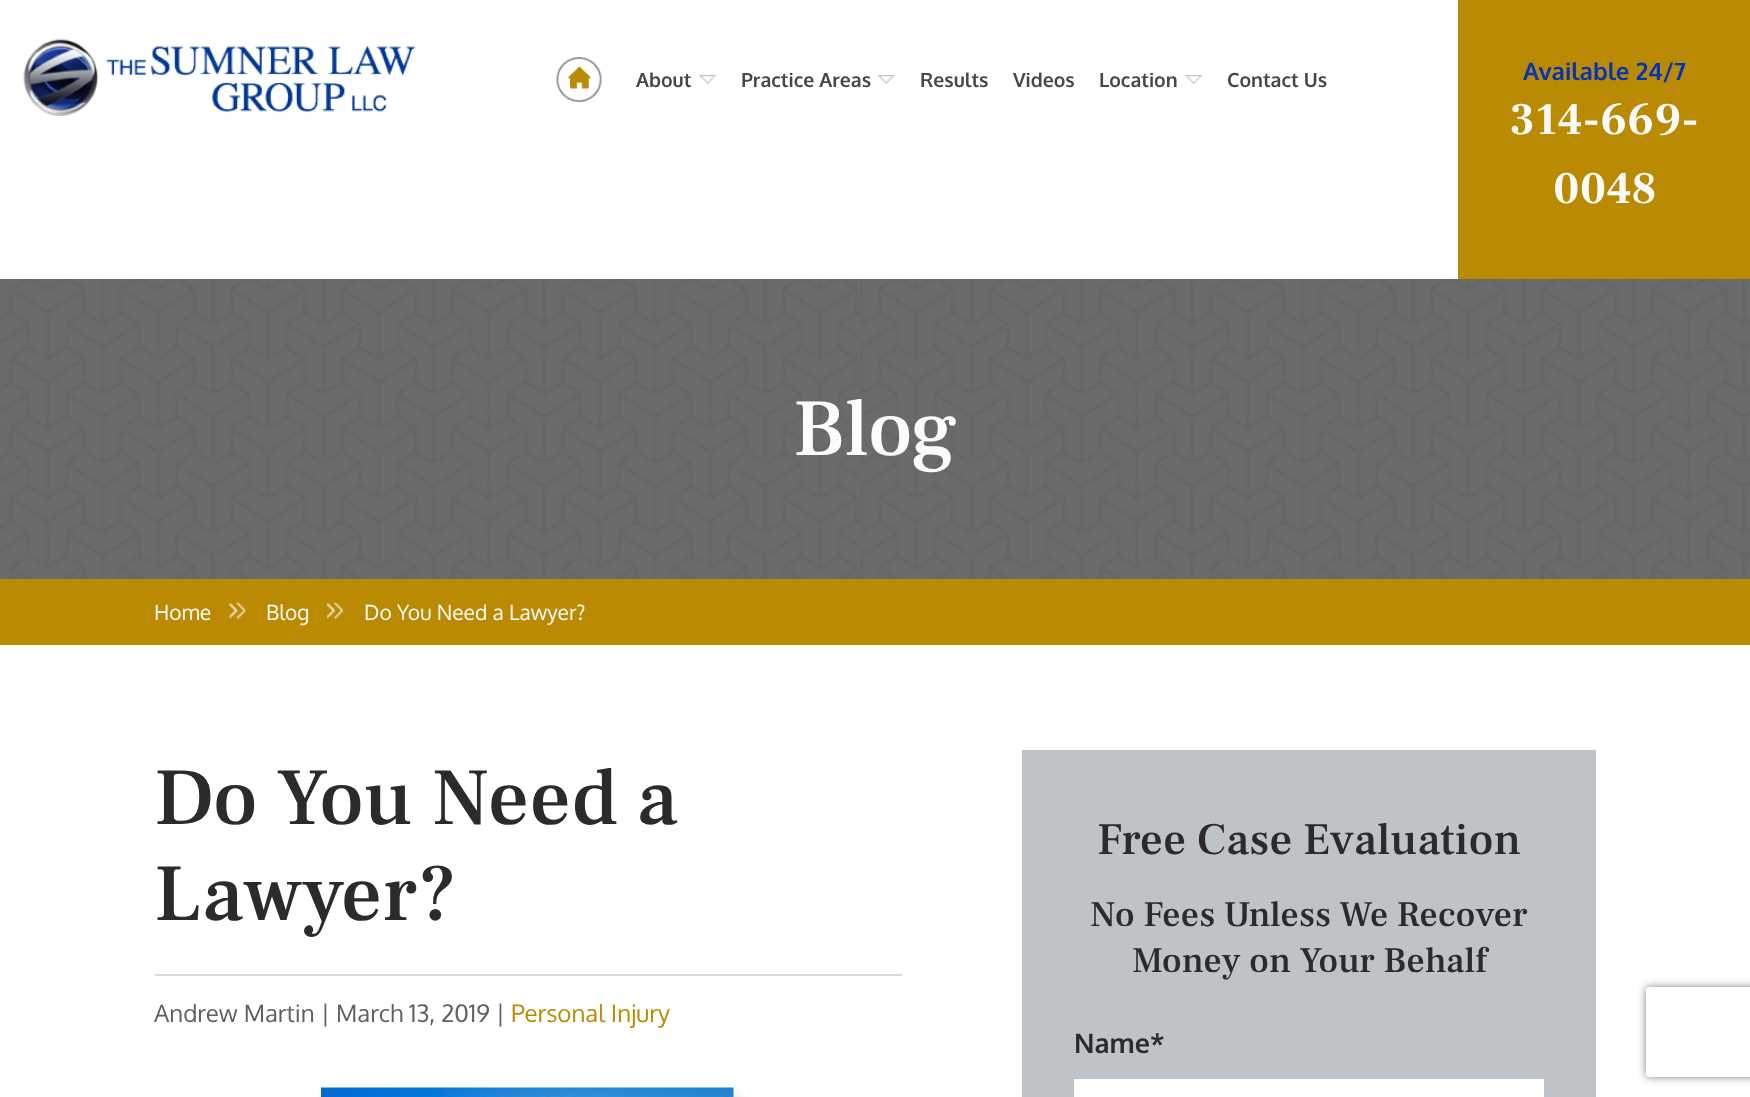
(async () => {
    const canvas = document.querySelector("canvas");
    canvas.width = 1750;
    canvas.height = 1097;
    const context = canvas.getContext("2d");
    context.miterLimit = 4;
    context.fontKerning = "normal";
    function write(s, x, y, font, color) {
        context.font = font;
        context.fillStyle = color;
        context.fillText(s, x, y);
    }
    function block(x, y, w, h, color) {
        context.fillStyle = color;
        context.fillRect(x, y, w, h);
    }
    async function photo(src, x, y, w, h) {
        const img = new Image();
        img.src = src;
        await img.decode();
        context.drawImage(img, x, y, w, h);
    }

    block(0, 0, 1750, 1097, "rgb(255, 255, 255)");
    await photo("media/1.png", 23, 38, 393, 78);
    await photo("media/2.png", 556, 57, 46, 45);
    write("About", 636, 87, "bold 19.5px Oxygen", "rgb(71, 71, 71)");
    await photo("media/3.png", 699, 75, 17, 9);
    write("Practice Areas", 741, 87, "bold 19.5px Oxygen", "rgb(71, 71, 71)");
    await photo("media/4.png", 877, 75, 18, 9);
    write("Results", 920, 87, "bold 19.5px Oxygen", "rgb(71, 71, 71)");
    write("Videos", 1013, 87, "bold 19.5px Oxygen", "rgb(71, 71, 71)");
    write("Location", 1099, 87, "bold 19.5px Oxygen", "rgb(71, 71, 71)");
    await photo("media/3.png", 1185, 75, 17, 9);
    write("Contact Us", 1227, 87, "bold 19.5px Oxygen", "rgb(71, 71, 71)");
    block(1458, 0, 292, 279, "rgb(186, 138, 3)");
    write("Available 24/7", 1523, 80, "bold 24px Oxygen", "rgb(3, 51, 186)");
    write("314-669-", 1510, 134, "bold 45px Frank Ruhl Libre", "rgb(251, 251, 251)");
    write("0048", 1553, 203, "bold 45px Frank Ruhl Libre", "rgb(251, 251, 251)");
    await photo("media/5.png", 0, 279, 1750, 300);
    write("Blog", 793, 455, "500 81px Frank Ruhl Libre", "rgb(251, 251, 251)");
    block(0, 579, 1750, 66, "rgb(186, 138, 3)");
    write("Home", 154, 620, "21px Oxygen", "rgb(251, 251, 251)");
    await photo("media/6.png", 229, 601, 17, 19);
    write("Blog", 266, 620, "21px Oxygen", "rgb(251, 251, 251)");
    await photo("media/7.png", 327, 601, 17, 19);
    write("Do You Need a Lawyer?", 364, 620, "21px Oxygen", "rgb(251, 251, 251)");
    write("Do You Need a", 154, 824, "500 81px Frank Ruhl Libre", "rgb(43, 43, 43)");
    write("Lawyer?", 154, 920, "500 81px Frank Ruhl Libre", "rgb(43, 43, 43)");
    block(155, 974, 747, 2, "rgb(216, 217, 217)");
    write("Andrew Martin | March 13, 2019 |", 154, 1022, "24px Oxygen", "rgb(96, 96, 96)");
    write("Personal Injury", 511, 1022, "24px Oxygen", "rgb(186, 138, 3)");
    context.fillStyle = "rgba(0, 0, 0, 0.07)";
    context.filter = "blur(5px)";
    context.beginPath();
    context.rect(326, 1092, 415, 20);
    context.fill();
    context.filter = "none";
    await photo("media/8.png", 321, 1087, 413, 10);
    block(1022, 750, 574, 347, "rgb(189, 195, 199)");
    write("Free Case Evaluation", 1097, 854, "500 45px Frank Ruhl Libre", "rgb(43, 43, 43)");
    write("No Fees Unless We Recover", 1090, 926, "500 36px Frank Ruhl Libre", "rgb(43, 43, 43)");
    write("Money on Your Behalf", 1132, 972, "500 36px Frank Ruhl Libre", "rgb(43, 43, 43)");
    write("Name*", 1074, 1053, "bold 27px Oxygen", "rgb(43, 43, 43)");
    block(1074, 1079, 470, 18, "rgb(255, 255, 255)");
    context.save();
    context.beginPath();
    context.moveTo(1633, 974);
    context.lineTo(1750, 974);
    context.lineTo(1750, 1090);
    context.lineTo(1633, 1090);
    context.closePath();
    context.moveTo(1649, 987);
    context.lineTo(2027, 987);
    context.bezierCurveTo(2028.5, 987, 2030, 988.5, 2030, 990);
    context.lineTo(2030, 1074);
    context.bezierCurveTo(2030, 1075.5, 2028.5, 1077, 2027, 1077);
    context.lineTo(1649, 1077);
    context.bezierCurveTo(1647.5, 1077, 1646, 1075.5, 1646, 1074);
    context.lineTo(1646, 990);
    context.bezierCurveTo(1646, 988.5, 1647.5, 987, 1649, 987);
    context.closePath();
    context.clip("evenodd");
    context.fillStyle = "rgb(128, 128, 128)";
    context.filter = "blur(4px)";
    context.beginPath();
    context.roundRect(1646, 987, 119, 90, 3);
    context.fill();
    context.filter = "none";
    context.restore();
})();
